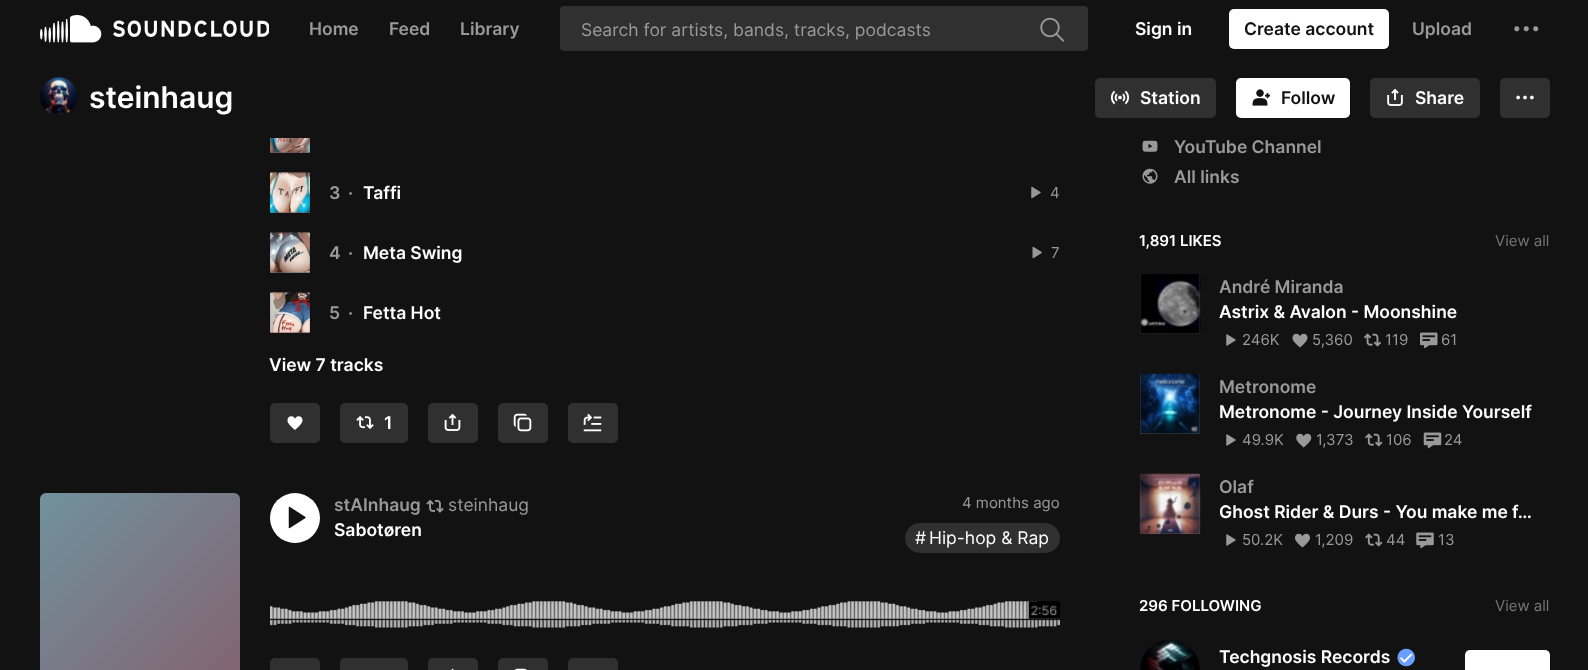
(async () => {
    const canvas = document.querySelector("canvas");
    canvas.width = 1588;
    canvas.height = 670;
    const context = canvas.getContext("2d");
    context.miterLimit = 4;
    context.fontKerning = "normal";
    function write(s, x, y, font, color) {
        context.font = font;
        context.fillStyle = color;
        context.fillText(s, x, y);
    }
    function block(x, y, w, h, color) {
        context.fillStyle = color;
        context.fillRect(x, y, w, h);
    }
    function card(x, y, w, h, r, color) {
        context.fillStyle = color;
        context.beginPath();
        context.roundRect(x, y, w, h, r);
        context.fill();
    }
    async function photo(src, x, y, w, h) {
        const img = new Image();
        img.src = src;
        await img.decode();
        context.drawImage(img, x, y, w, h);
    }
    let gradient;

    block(0, 0, 1588, 670, "rgb(18, 18, 18)");
    await photo("media/1.png", 40, 15, 229, 28);
    write("Home", 309, 35, "600 17.5px Inter", "rgb(153, 153, 153)");
    write("Feed", 389, 35, "600 17.5px Inter", "rgb(153, 153, 153)");
    write("Library", 460, 35, "600 17.5px Inter", "rgb(153, 153, 153)");
    card(560, 6, 528, 45, 4, "rgb(48, 48, 48)");
    write("Search for artists, bands, tracks, podcasts", 581, 36, "17.5px Inter", "rgb(153, 153, 153)");
    await photo("media/2.png", 1040, 17, 25, 25);
    write("Sign in", 1135, 35, "600 17.5px Inter", "rgb(255, 255, 255)");
    card(1229, 9, 160, 40, 5, "rgb(255, 255, 255)");
    write("Create account", 1244, 35, "600 17.5px Inter", "rgb(18, 18, 18)");
    write("Upload", 1412, 35, "600 17.5px Inter", "rgb(153, 153, 153)");
    await photo("media/3.png", 1514, 26, 25, 6);
    gradient = context.createLinearGradient(270, 113, 310, 153);
    gradient.addColorStop(0, "rgb(142, 132, 133)");
    gradient.addColorStop(1, "rgb(132, 97, 112)");
    context.fillStyle = gradient;
    context.beginPath();
    context.roundRect(270, 113, 40, 40, 1);
    context.fill();
    await photo("media/9.png", 270, 138, 40, 15);
    context.strokeStyle = "rgba(18, 18, 18, 0.1)";
    context.strokeRect(270.5, 113.5, 39, 39);
    block(270, 113, 40, 25, "rgb(18, 18, 18)");
    await photo("media/4.png", 40, 77, 38, 38);
    context.beginPath();
    context.roundRect(40.5, 78.5, 37, 36, 18);
    context.stroke();
    write("steinhaug", 89, 108, "600 30px Inter", "rgb(255, 255, 255)");
    card(1095, 78, 121, 40, 5, "rgb(48, 48, 48)");
    await photo("media/5.png", 1110, 90, 20, 15);
    write("Station", 1140, 104, "600 17.5px Inter", "rgb(255, 255, 255)");
    card(1236, 78, 114, 40, 5, "rgb(255, 255, 255)");
    await photo("media/6.png", 1252, 89, 18, 17);
    write("Follow", 1281, 104, "600 17.5px Inter", "rgb(18, 18, 18)");
    card(1370, 78, 110, 40, 5, "rgb(48, 48, 48)");
    await photo("media/7.png", 1387, 88, 16, 18);
    write("Share", 1415, 104, "600 17.5px Inter", "rgb(255, 255, 255)");
    card(1500, 78, 50, 40, 5, "rgb(48, 48, 48)");
    await photo("media/8.png", 1516, 95, 18, 5);
    await photo("media/10.png", 1035, 138, 1, 1);
    gradient = context.createLinearGradient(270, 173, 310, 213);
    gradient.addColorStop(0, "rgb(112, 146, 156)");
    gradient.addColorStop(1, "rgb(132, 97, 112)");
    context.fillStyle = gradient;
    context.beginPath();
    context.roundRect(270, 173, 40, 40, 1);
    context.fill();
    await photo("media/11.png", 270, 172, 40, 41);
    context.strokeRect(270.5, 173.5, 39, 39);
    write("3", 329, 199, "600 17.5px Inter", "rgb(153, 153, 153)");
    write("·", 348, 199, "600 17.5px Inter", "rgb(153, 153, 153)");
    write("Taffi", 363, 199, "600 17.5px Inter", "rgb(255, 255, 255)");
    await photo("media/12.png", 1031, 186, 10, 13);
    write("4", 1050, 198, "15px Inter", "rgb(153, 153, 153)");
    gradient = context.createLinearGradient(270, 233, 310, 273);
    gradient.addColorStop(0, "rgb(132, 97, 112)");
    gradient.addColorStop(1, "rgb(112, 146, 156)");
    context.fillStyle = gradient;
    context.beginPath();
    context.roundRect(270, 233, 40, 40, 1);
    context.fill();
    await photo("media/13.png", 270, 232, 40, 41);
    context.strokeRect(270.5, 233.5, 39, 39);
    write("4", 329, 259, "600 17.5px Inter", "rgb(153, 153, 153)");
    write("·", 348, 259, "600 17.5px Inter", "rgb(153, 153, 153)");
    write("Meta Swing", 363, 259, "600 17.5px Inter", "rgb(255, 255, 255)");
    await photo("media/14.png", 1032, 246, 10, 13);
    write("7", 1051, 258, "15px Inter", "rgb(153, 153, 153)");
    gradient = context.createLinearGradient(270, 293, 310, 333);
    gradient.addColorStop(0, "rgb(230, 132, 110)");
    gradient.addColorStop(1, "rgb(132, 97, 112)");
    context.fillStyle = gradient;
    context.beginPath();
    context.roundRect(270, 293, 40, 40, 1);
    context.fill();
    await photo("media/15.png", 270, 292, 40, 41);
    context.strokeRect(270.5, 293.5, 39, 39);
    write("5", 329, 319, "600 17.5px Inter", "rgb(153, 153, 153)");
    write("·", 348, 319, "600 17.5px Inter", "rgb(153, 153, 153)");
    write("Fetta Hot", 363, 319, "600 17.5px Inter", "rgb(255, 255, 255)");
    write("View 7 tracks", 269, 371, "600 17.5px Inter", "rgb(255, 255, 255)");
    card(270, 403, 50, 40, 5, "rgb(48, 48, 48)");
    await photo("media/16.png", 287, 416, 16, 14);
    card(340, 403, 68, 40, 5, "rgb(48, 48, 48)");
    await photo("media/17.png", 356, 416, 18, 13);
    write("1", 384, 429, "600 17.5px Inter", "rgb(255, 255, 255)");
    card(428, 403, 50, 40, 5, "rgb(48, 48, 48)");
    await photo("media/18.png", 444, 413, 17, 18);
    card(498, 403, 50, 40, 5, "rgb(48, 48, 48)");
    await photo("media/19.png", 513, 413, 19, 19);
    card(568, 403, 50, 40, 5, "rgb(48, 48, 48)");
    await photo("media/20.png", 583, 413, 19, 19);
    gradient = context.createLinearGradient(40, 493, 240, 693);
    gradient.addColorStop(0, "rgb(112, 146, 156)");
    gradient.addColorStop(1, "rgb(132, 97, 112)");
    context.fillStyle = gradient;
    context.beginPath();
    context.roundRect(40, 493, 200, 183, 6);
    context.fill();
    context.fillStyle = "rgb(255, 255, 255)";
    context.beginPath();
    context.arc(295, 518, 25, 0, Math.PI * 2);
    context.fill();
    await photo("media/21.png", 288, 506, 18, 23);
    write("stAInhaug", 334, 511, "600 17.5px Inter", "rgb(153, 153, 153)");
    await photo("media/22.png", 426, 499, 18, 14);
    write("steinhaug", 448, 511, "17.5px Inter", "rgb(153, 153, 153)");
    write("Sabotøren", 334, 536, "600 17.5px Inter", "rgb(255, 255, 255)");
    write("4 months ago", 962, 508, "15px Inter", "rgb(153, 153, 153)");
    card(905, 523, 155, 30, 15, "rgb(48, 48, 48)");
    write("#", 915, 544, "17.5px Inter", "rgb(255, 255, 255)");
    write("Hip-hop & Rap", 929, 544, "17.5px Inter", "rgb(255, 255, 255)");
    await photo("media/23.png", 270, 601, 790, 27);
    await photo("media/24.png", 1027, 601, 33, 18);
    card(270, 658, 50, 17, 5, "rgb(48, 48, 48)");
    card(340, 658, 68, 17, 5, "rgb(48, 48, 48)");
    card(428, 658, 50, 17, 5, "rgb(48, 48, 48)");
    await photo("media/25.png", 451, 668, 3, 2);
    card(498, 658, 50, 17, 5, "rgb(48, 48, 48)");
    await photo("media/26.png", 514, 668, 13, 2);
    card(568, 658, 50, 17, 5, "rgb(48, 48, 48)");
    await photo("media/27.png", 1142, 140, 16, 12);
    write("YouTube Channel", 1174, 153, "600 17.5px Inter", "rgb(153, 153, 153)");
    await photo("media/28.png", 1142, 168, 16, 16);
    write("All links", 1174, 183, "600 17.5px Inter", "rgb(153, 153, 153)");
    write("1,891 LIKES", 1139, 246, "600 15px Inter", "rgb(255, 255, 255)");
    write("View all", 1495, 246, "15px Inter", "rgb(117, 117, 117)");
    gradient = context.createLinearGradient(1140, 274, 1200, 334);
    gradient.addColorStop(0, "rgb(142, 132, 133)");
    gradient.addColorStop(1, "rgb(132, 97, 112)");
    context.fillStyle = gradient;
    context.beginPath();
    context.roundRect(1140, 274, 60, 60, 2);
    context.fill();
    await photo("media/29.png", 1140, 274, 61, 60);
    context.beginPath();
    context.roundRect(1140.5, 274.5, 59, 59, 1.5);
    context.stroke();
    write("André Miranda", 1219, 293, "600 17.5px Inter", "rgb(153, 153, 153)");
    write("Astrix & Avalon - Moonshine", 1219, 318, "600 17.5px Inter", "rgb(255, 255, 255)");
    await photo("media/30.png", 1226, 334, 10, 12);
    write("246K", 1242, 345, "15px Inter", "rgb(153, 153, 153)");
    await photo("media/31.png", 1292, 333, 16, 15);
    write("5,360", 1312, 345, "15px Inter", "rgb(153, 153, 153)");
    await photo("media/32.png", 1363, 333, 19, 14);
    write("119", 1385, 345, "15px Inter", "rgb(153, 153, 153)");
    await photo("media/33.png", 1420, 332, 18, 17);
    write("61", 1441, 345, "15px Inter", "rgb(153, 153, 153)");
    gradient = context.createLinearGradient(1140, 374, 1200, 434);
    gradient.addColorStop(0, "rgb(230, 132, 110)");
    gradient.addColorStop(1, "rgb(112, 146, 156)");
    context.fillStyle = gradient;
    context.beginPath();
    context.roundRect(1140, 374, 60, 60, 2);
    context.fill();
    await photo("media/34.png", 1139, 373, 62, 61);
    context.beginPath();
    context.roundRect(1140.5, 374.5, 59, 59, 1.5);
    context.stroke();
    write("Metronome", 1219, 393, "600 17.5px Inter", "rgb(153, 153, 153)");
    write("Metronome - Journey Inside Yourself", 1219, 418, "600 17.5px Inter", "rgb(255, 255, 255)");
    await photo("media/30.png", 1226, 434, 10, 12);
    write("49.9K", 1242, 445, "15px Inter", "rgb(153, 153, 153)");
    await photo("media/35.png", 1296, 433, 16, 15);
    write("1,373", 1316, 445, "15px Inter", "rgb(153, 153, 153)");
    await photo("media/36.png", 1365, 433, 18, 14);
    write("106", 1386, 445, "15px Inter", "rgb(153, 153, 153)");
    await photo("media/37.png", 1423, 432, 19, 17);
    write("24", 1444, 445, "15px Inter", "rgb(153, 153, 153)");
    gradient = context.createLinearGradient(1140, 474, 1200, 534);
    gradient.addColorStop(0, "rgb(132, 97, 112)");
    gradient.addColorStop(1, "rgb(230, 132, 110)");
    context.fillStyle = gradient;
    context.beginPath();
    context.roundRect(1140, 474, 60, 60, 2);
    context.fill();
    await photo("media/38.png", 1139, 473, 62, 61);
    context.beginPath();
    context.roundRect(1140.5, 474.5, 59, 59, 1.5);
    context.stroke();
    write("Olaf", 1219, 493, "600 17.5px Inter", "rgb(153, 153, 153)");
    write("Ghost Rider & Durs - You make me f…", 1219, 518, "600 17.5px Inter", "rgb(255, 255, 255)");
    await photo("media/30.png", 1226, 534, 10, 12);
    write("50.2K", 1242, 545, "15px Inter", "rgb(153, 153, 153)");
    await photo("media/39.png", 1295, 533, 15, 15);
    write("1,209", 1315, 545, "15px Inter", "rgb(153, 153, 153)");
    await photo("media/36.png", 1365, 533, 18, 14);
    write("44", 1386, 545, "15px Inter", "rgb(153, 153, 153)");
    await photo("media/40.png", 1416, 532, 18, 17);
    write("13", 1438, 545, "15px Inter", "rgb(153, 153, 153)");
    write("296 FOLLOWING", 1139, 611, "600 15px Inter", "rgb(255, 255, 255)");
    write("View all", 1495, 611, "15px Inter", "rgb(117, 117, 117)");
    await photo("media/41.png", 1140, 640, 60, 30);
    write("Techgnosis Records", 1219, 663, "600 17.5px Inter", "rgb(255, 255, 255)");
    await photo("media/42.png", 1397, 648, 18, 19);
    card(1465, 650, 85, 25, 5, "rgb(255, 255, 255)");
})();
